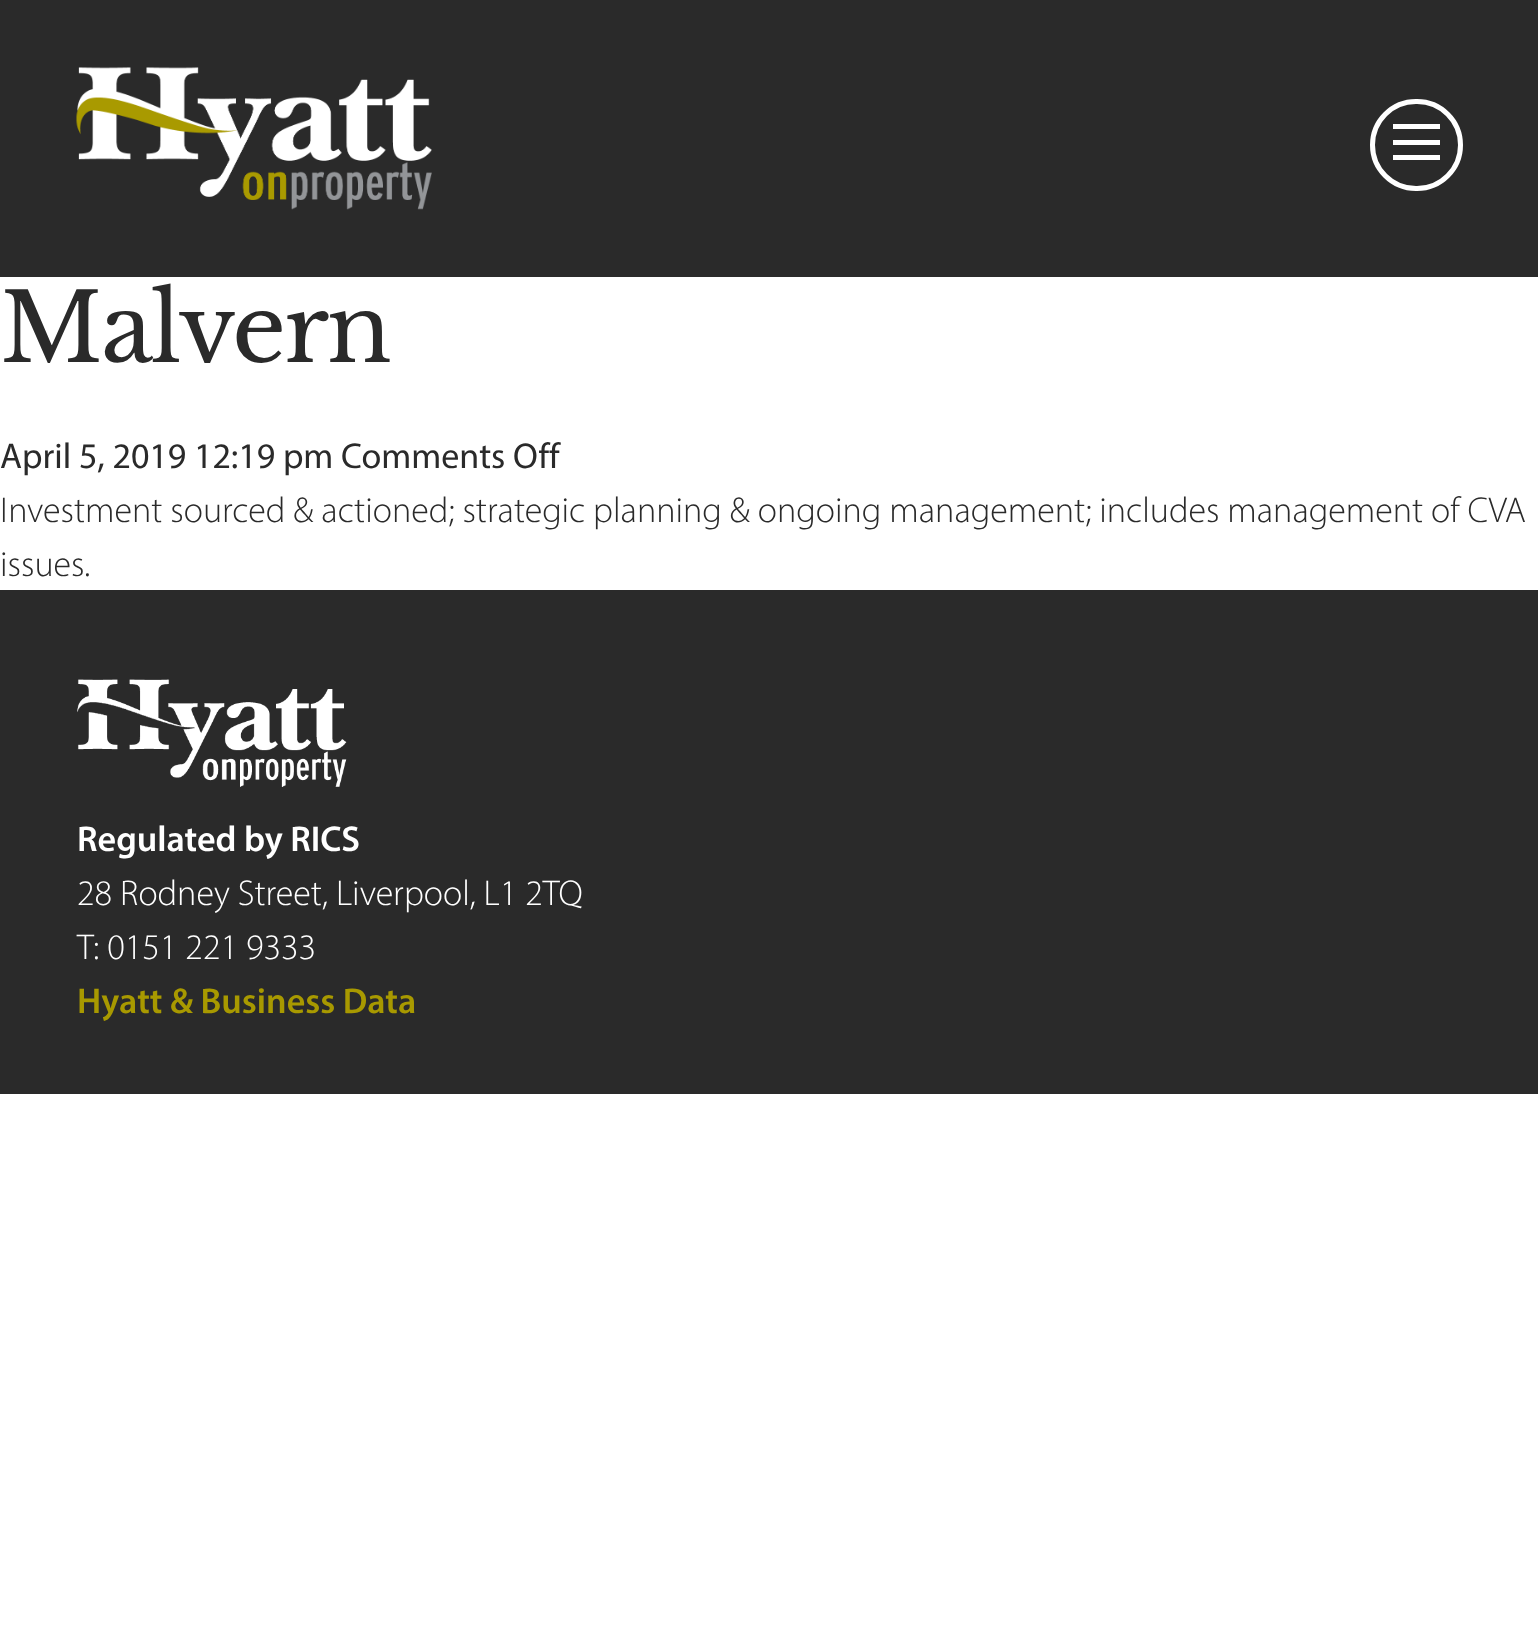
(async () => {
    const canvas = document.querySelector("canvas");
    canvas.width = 1538;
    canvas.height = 1635;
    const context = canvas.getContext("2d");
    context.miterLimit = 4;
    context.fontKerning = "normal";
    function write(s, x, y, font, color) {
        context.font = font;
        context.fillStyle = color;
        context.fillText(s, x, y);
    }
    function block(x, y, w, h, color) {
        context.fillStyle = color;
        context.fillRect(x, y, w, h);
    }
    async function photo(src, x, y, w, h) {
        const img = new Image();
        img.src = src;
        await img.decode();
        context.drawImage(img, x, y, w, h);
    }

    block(0, 0, 1538, 1635, "rgb(255, 255, 255)");
    block(0, 0, 1538, 277, "rgb(42, 42, 42)");
    await photo("media/1.png", 76, 67, 356, 143);
    context.beginPath();
    context.roundRect(1372.5, 101.5, 88, 87, 43.5);
    context.strokeStyle = "rgb(255, 255, 255)";
    context.lineWidth = 5;
    context.stroke();
    block(1393, 124, 47, 5, "rgb(255, 255, 255)");
    block(1393, 140, 47, 5, "rgb(255, 255, 255)");
    block(1393, 155, 47, 5, "rgb(255, 255, 255)");
    context.letterSpacing = "-2.25px";
    write("Malvern", 0, 362, "94.5px Libre Baskerville", "rgb(42, 42, 42)");
    context.letterSpacing = "0px";
    write("April 5, 2019 12:19 pm Comments Off", 0, 468, "36px Myriad", "rgb(42, 42, 42)");
    write("Investment sourced & actioned; strategic planning & ongoing management; includes management of CVA", 0, 522, "300 36px Myriad", "rgb(42, 42, 42)");
    write("issues.", 0, 576, "300 36px Myriad", "rgb(42, 42, 42)");
    block(0, 590, 1538, 504, "rgb(42, 42, 42)");
    await photo("media/2.png", 77, 679, 270, 108);
    write("Regulated by RICS", 77, 851, "600 36px Myriad", "rgb(255, 255, 255)");
    write("28 Rodney Street, Liverpool, L1 2TQ", 77, 905, "300 36px Myriad", "rgb(255, 255, 255)");
    write("T: 0151 221 9333", 77, 959, "300 36px Myriad", "rgb(255, 255, 255)");
    write("Hyatt & Business Data", 77, 1013, "600 36px Myriad", "rgb(168, 153, 0)");
})();
